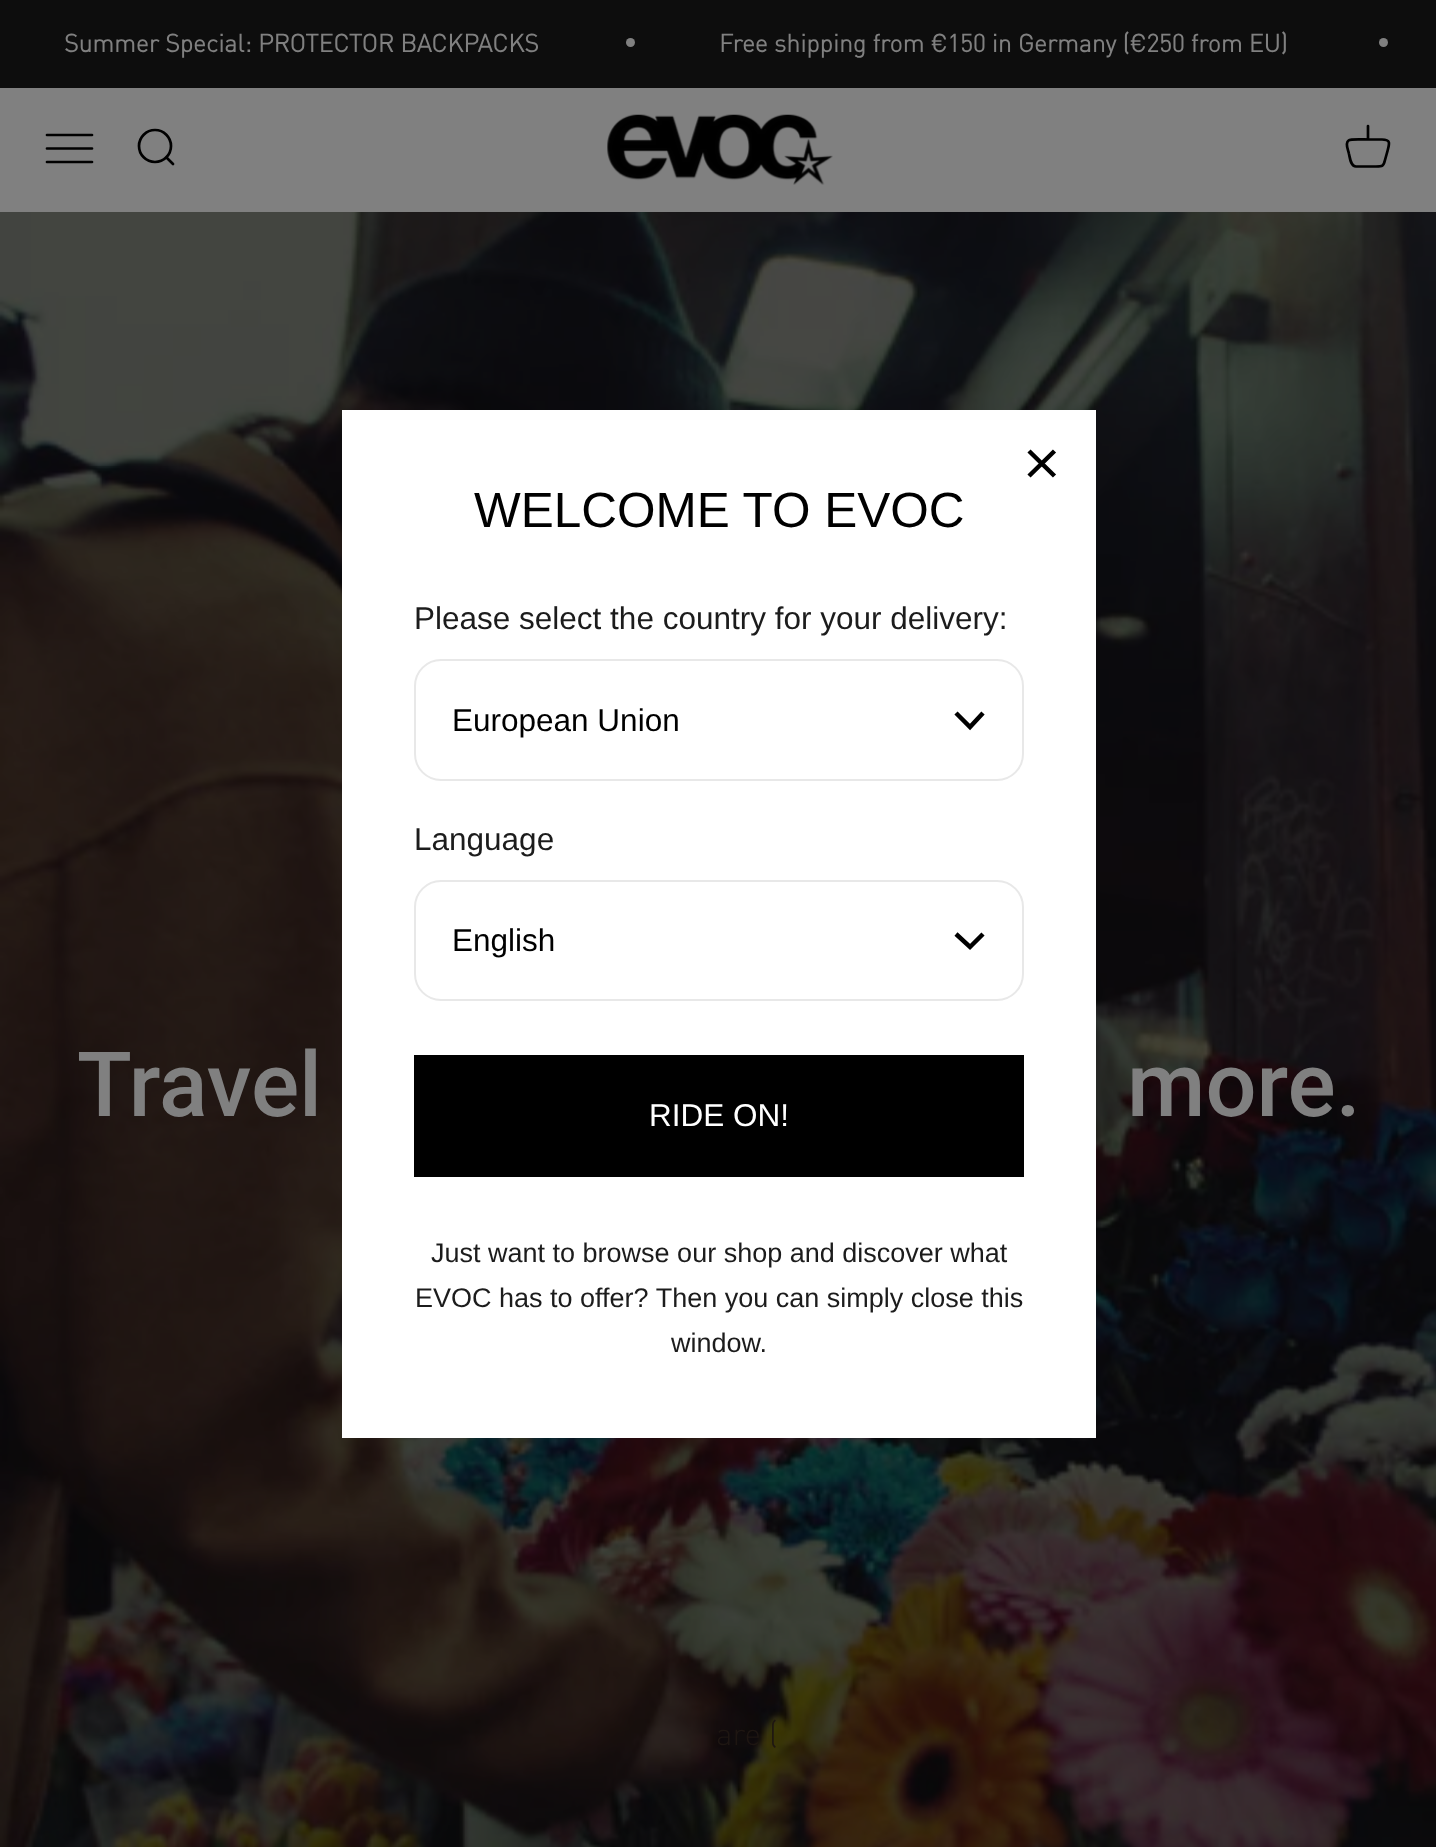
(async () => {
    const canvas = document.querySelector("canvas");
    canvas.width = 1436;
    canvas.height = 1847;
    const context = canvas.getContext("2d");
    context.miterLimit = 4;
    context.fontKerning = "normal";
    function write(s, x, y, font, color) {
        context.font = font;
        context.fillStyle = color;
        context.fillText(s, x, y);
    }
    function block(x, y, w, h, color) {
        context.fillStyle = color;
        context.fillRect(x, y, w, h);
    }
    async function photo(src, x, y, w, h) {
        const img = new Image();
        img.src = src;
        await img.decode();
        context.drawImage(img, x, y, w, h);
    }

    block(0, 0, 1436, 1847, "rgb(255, 255, 255)");
    block(0, 0, 1436, 88, "rgb(13, 13, 13)");
    write("Summer Special: PROTECTOR BACKPACKS", 64, 52, "bold 24.75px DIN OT", "rgb(128, 128, 128)");
    context.beginPath();
    context.arc(630.5, 42.5, 4.5, 0, Math.PI * 2);
    context.fill();
    write("Free shipping from €150 in Germany (€250 from EU)", 719, 52, "bold 24.75px DIN OT", "rgb(128, 128, 128)");
    context.beginPath();
    context.arc(1383.5, 42.5, 4.5, 0, Math.PI * 2);
    context.fill();
    block(0, 88, 1436, 124, "rgb(128, 128, 128)");
    context.beginPath();
    context.moveTo(47, 135);
    context.lineTo(92, 135);
    context.moveTo(47, 148.5);
    context.lineTo(92, 148.5);
    context.moveTo(47, 162);
    context.lineTo(92, 162);
    context.strokeStyle = "rgb(0, 0, 0)";
    context.lineWidth = 2.7;
    context.lineCap = "round";
    context.stroke();
    context.beginPath();
    context.arc(155, 146, 16, 0, Math.PI * 2);
    context.stroke();
    context.beginPath();
    context.moveTo(166.5, 157.5);
    context.lineTo(173, 164);
    context.lineJoin = "round";
    context.stroke();
    await photo("media/1.png", 607, 114, 226, 71);
    context.beginPath();
    context.moveTo(1368, 139.5);
    context.bezierCurveTo(1364, 139.5, 1351, 138.5, 1348.5, 140.5);
    context.bezierCurveTo(1344.5, 143.5, 1348.5, 150.5, 1349, 154);
    context.bezierCurveTo(1350, 158, 1350.5, 166.5, 1356, 166.5);
    context.lineTo(1376, 166.5);
    context.bezierCurveTo(1382.5, 166.5, 1383.5, 166.5, 1385, 160);
    context.lineTo(1387.5, 151);
    context.bezierCurveTo(1389.5, 143.5, 1391, 139.5, 1382, 139.5);
    context.closePath();
    context.moveTo(1368, 139.5);
    context.lineTo(1368, 126);
    context.stroke();
    await photo("media/2.png", 0, 212, 1436, 1635);
    block(342, 410, 754, 1028, "rgb(255, 255, 255)");
    context.beginPath();
    context.moveTo(1054.5, 451);
    context.lineTo(1029, 476);
    context.moveTo(1054.5, 476);
    context.lineTo(1029, 451);
    context.lineWidth = 4.5;
    context.lineCap = "butt";
    context.lineJoin = "miter";
    context.stroke();
    write("WELCOME TO EVOC", 474, 527, "49.5px Liberation Sans", "rgb(0, 0, 0)");
    write("Please select the country for your delivery:", 414, 629, "31.5px Liberation Sans", "rgb(28, 28, 28)");
    context.beginPath();
    context.roundRect(415, 660, 608, 120, 26);
    context.strokeStyle = "rgb(232, 232, 232)";
    context.lineWidth = 2;
    context.stroke();
    write("European Union", 452, 731, "31.5px Liberation Sans", "rgb(0, 0, 0)");
    context.beginPath();
    context.moveTo(956, 713);
    context.lineTo(970, 727);
    context.lineTo(983, 713);
    context.strokeStyle = "rgb(0, 0, 0)";
    context.lineWidth = 4.5;
    context.stroke();
    write("Language", 414, 850, "31.5px Liberation Sans", "rgb(28, 28, 28)");
    context.beginPath();
    context.roundRect(415, 881, 608, 119, 26);
    context.strokeStyle = "rgb(232, 232, 232)";
    context.lineWidth = 2;
    context.stroke();
    write("English", 452, 951, "31.5px Liberation Sans", "rgb(0, 0, 0)");
    context.beginPath();
    context.moveTo(956, 934);
    context.lineTo(970, 947);
    context.lineTo(983, 934);
    context.strokeStyle = "rgb(0, 0, 0)";
    context.lineWidth = 4.5;
    context.stroke();
    block(414, 1055, 610, 122, "rgb(0, 0, 0)");
    write("RIDE ON!", 649, 1126, "31.5px Liberation Sans", "rgb(255, 255, 255)");
    write("Just want to browse our shop and discover what", 431, 1262, "27px Liberation Sans", "rgb(28, 28, 28)");
    write("EVOC has to offer? Then you can simply close this", 415, 1307, "27px Liberation Sans", "rgb(28, 28, 28)");
    write("window.", 671, 1352, "27px Liberation Sans", "rgb(28, 28, 28)");
    write("Travel", 77, 1116, "500 90px Roboto", "rgb(128, 128, 128)");
    write("more.", 1127, 1116, "500 90px Roboto", "rgb(128, 128, 128)");
    write("are (", 716, 1745, "300 31.5px DIN OT", "rgb(30, 22, 18)");
})();
